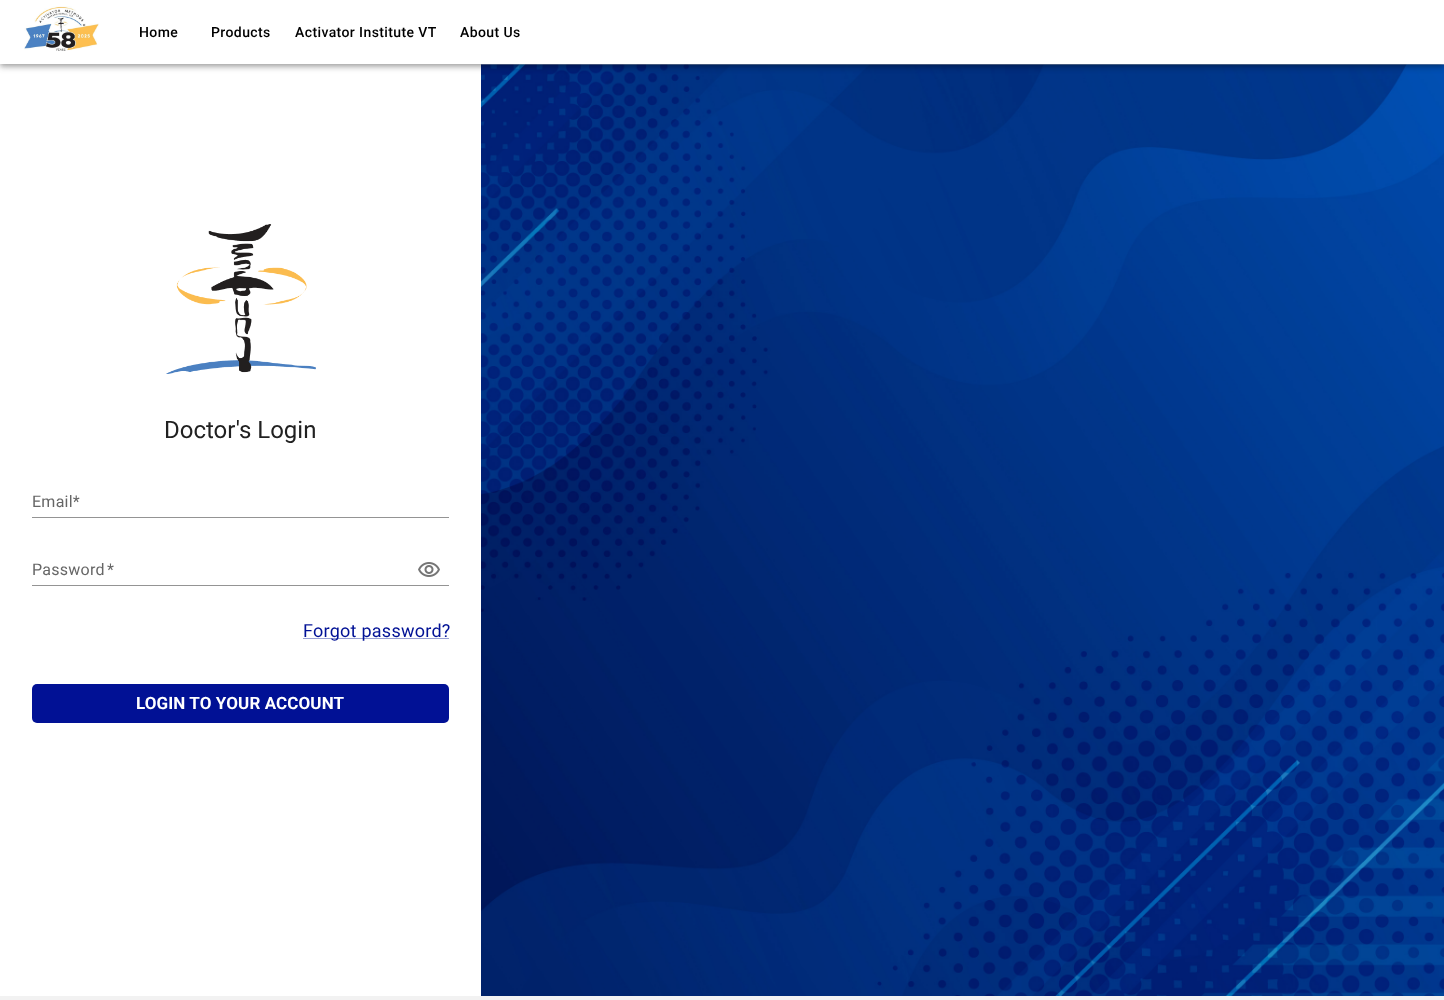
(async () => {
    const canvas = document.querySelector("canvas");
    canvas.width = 1444;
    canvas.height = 1000;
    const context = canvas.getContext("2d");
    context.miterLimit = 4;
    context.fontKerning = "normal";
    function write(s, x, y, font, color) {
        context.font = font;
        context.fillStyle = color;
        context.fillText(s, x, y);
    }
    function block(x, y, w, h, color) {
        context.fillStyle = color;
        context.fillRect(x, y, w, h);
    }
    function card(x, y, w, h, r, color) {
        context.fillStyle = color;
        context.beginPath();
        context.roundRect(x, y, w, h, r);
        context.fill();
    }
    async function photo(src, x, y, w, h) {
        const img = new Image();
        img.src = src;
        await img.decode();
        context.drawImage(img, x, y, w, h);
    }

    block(0, 0, 1444, 1000, "rgb(242, 242, 242)");
    block(0, 64, 481, 932, "rgb(255, 255, 255)");
    await photo("media/4.png", 481, 64, 963, 932);
    context.fillStyle = "rgba(0, 0, 0, 0.12)";
    context.filter = "blur(5px)";
    context.beginPath();
    context.rect(0, 1, 1444, 64);
    context.fill();
    context.filter = "none";
    context.fillStyle = "rgba(0, 0, 0, 0.14)";
    context.filter = "blur(2.5px)";
    context.beginPath();
    context.rect(0, 4, 1444, 64);
    context.fill();
    context.filter = "none";
    context.fillStyle = "rgba(0, 0, 0, 0.2)";
    context.filter = "blur(2px)";
    context.beginPath();
    context.rect(1, 3, 1442, 62);
    context.fill();
    context.filter = "none";
    block(0, 0, 1444, 64, "rgb(255, 255, 255)");
    await photo("media/1.png", 24, 6, 75, 45);
    context.letterSpacing = "0.4px";
    write("Home", 139, 37, "500 14px Roboto", "rgb(0, 0, 0)");
    write("Products", 211, 37, "500 14px Roboto", "rgb(0, 0, 0)");
    write("Activator Institute VT", 295, 37, "500 14px Roboto", "rgb(0, 0, 0)");
    write("About Us", 460, 37, "500 14px Roboto", "rgb(0, 0, 0)");
    await photo("media/2.png", 166, 224, 150, 150);
    context.letterSpacing = "0px";
    write("Doctor's Login", 164, 438, "24px Roboto", "rgb(33, 33, 33)");
    context.letterSpacing = "0.25px";
    write("Email*", 32, 507, "16px Roboto", "rgb(102, 102, 102)");
    block(32, 517, 417, 1, "rgb(148, 148, 148)");
    await photo("media/3.png", 418, 562, 22, 15);
    block(32, 585, 417, 1, "rgb(148, 148, 148)");
    write("Password", 32, 575, "16px Roboto", "rgb(102, 102, 102)");
    write("*", 107, 575, "16px Roboto", "rgb(102, 102, 102)");
    block(303, 638, 146, 1, "rgb(153, 160, 213)");
    write("Forgot password?", 303, 637, "18px Roboto", "rgb(1, 17, 149)");
    card(32, 684, 417, 39, 5, "rgb(1, 17, 149)");
    context.letterSpacing = "0.1px";
    write("LOGIN TO YOUR ACCOUNT", 136, 709, "bold 17px Roboto", "rgb(255, 255, 255)");
})();
